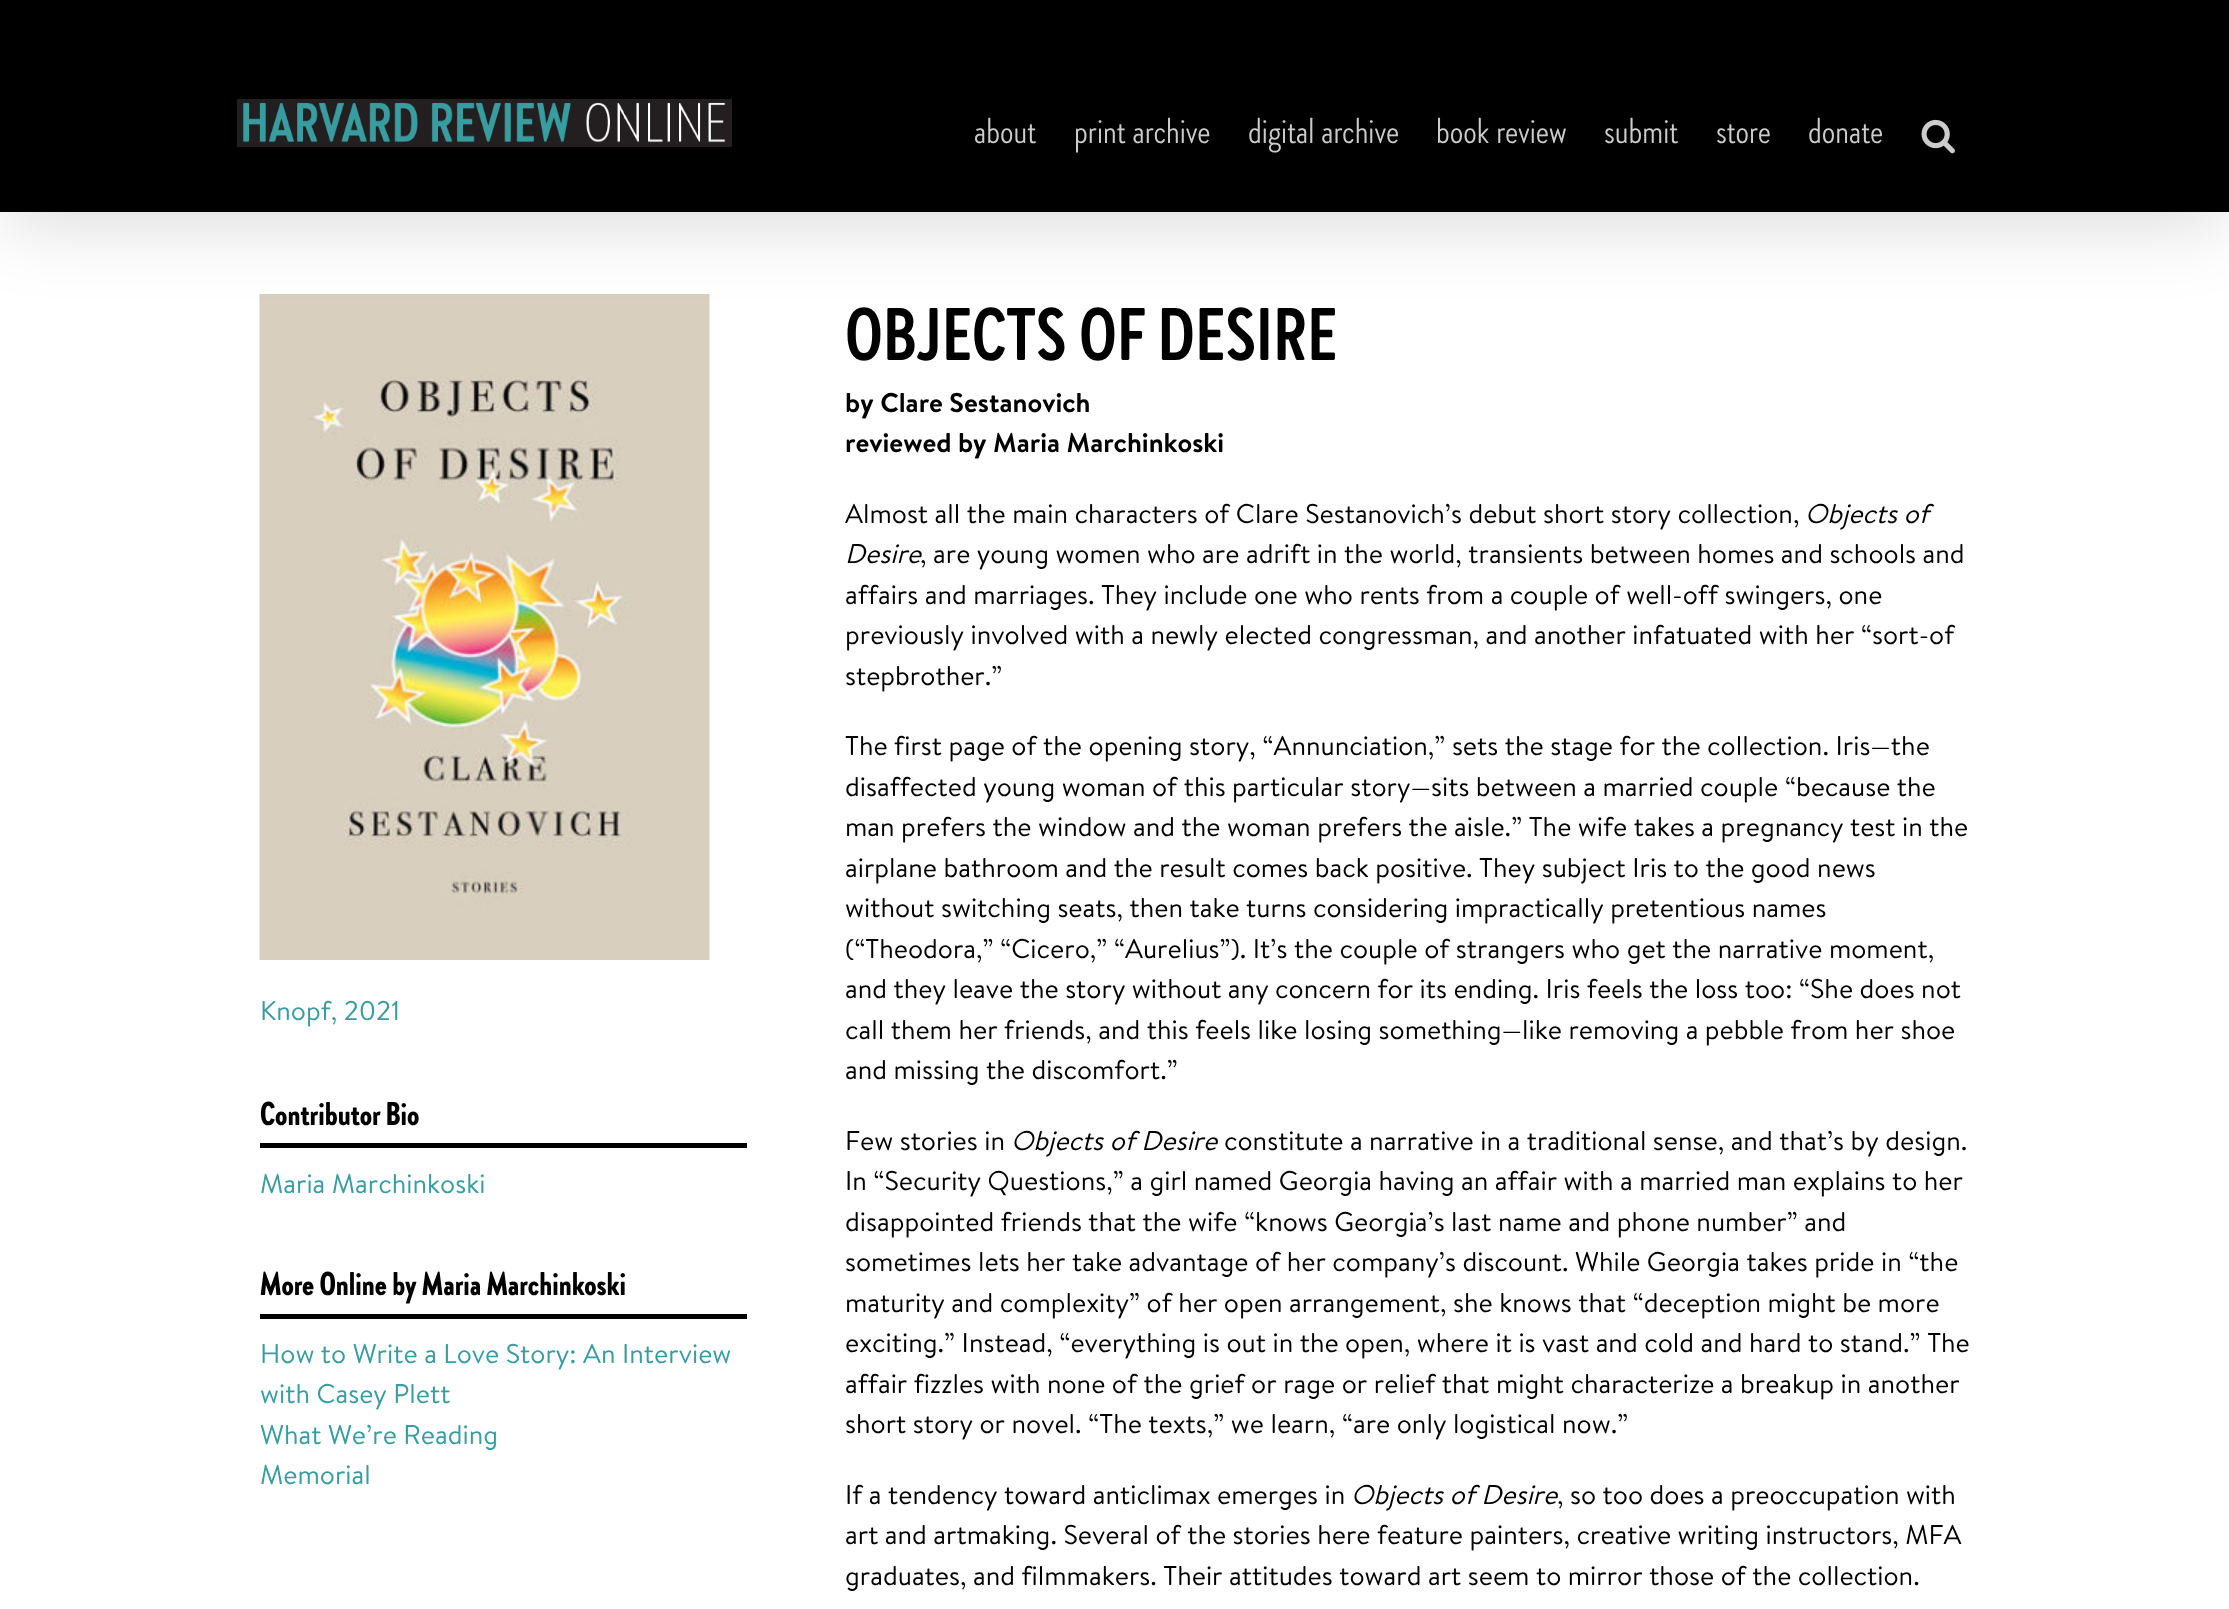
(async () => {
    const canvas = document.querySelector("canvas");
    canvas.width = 2229;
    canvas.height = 1609;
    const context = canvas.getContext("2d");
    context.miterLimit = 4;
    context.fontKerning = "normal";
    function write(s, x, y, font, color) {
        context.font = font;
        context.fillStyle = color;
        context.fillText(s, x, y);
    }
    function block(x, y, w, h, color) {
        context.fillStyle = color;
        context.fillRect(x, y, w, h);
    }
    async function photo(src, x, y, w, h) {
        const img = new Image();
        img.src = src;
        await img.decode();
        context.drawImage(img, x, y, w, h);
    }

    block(0, 0, 2229, 1609, "rgb(255, 255, 255)");
    await photo("media/3.png", 259, 294, 451, 666);
    context.fillStyle = "rgba(0, 0, 0, 0.14)";
    context.filter = "blur(37.5px)";
    context.beginPath();
    context.rect(3, 18, 2223, 206);
    context.fill();
    context.filter = "none";
    block(0, 0, 2229, 212, "rgb(0, 0, 0)");
    await photo("media/1.png", 237, 99, 495, 48);
    write("about", 974, 143, "36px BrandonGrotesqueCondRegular", "rgb(204, 204, 204)");
    write("print archive", 1074, 143, "36px BrandonGrotesqueCondRegular", "rgb(204, 204, 204)");
    write("digital archive", 1248, 143, "36px BrandonGrotesqueCondRegular", "rgb(204, 204, 204)");
    write("book review", 1436, 143, "36px BrandonGrotesqueCondRegular", "rgb(204, 204, 204)");
    write("submit", 1604, 143, "36px BrandonGrotesqueCondRegular", "rgb(204, 204, 204)");
    write("store", 1716, 143, "36px BrandonGrotesqueCondRegular", "rgb(204, 204, 204)");
    write("donate", 1808, 143, "36px BrandonGrotesqueCondRegular", "rgb(204, 204, 204)");
    await photo("media/2.png", 1921, 119, 34, 35);
    write("Knopf, 2021", 260, 1020, "27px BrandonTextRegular", "rgb(56, 157, 161)");
    block(260, 1143, 487, 5, "rgb(0, 0, 0)");
    write("Contributor Bio", 260, 1125, "33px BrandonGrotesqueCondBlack", "rgb(0, 0, 0)");
    write("Maria Marchinkoski", 260, 1193, "27px BrandonTextRegular", "rgb(56, 157, 161)");
    block(260, 1314, 487, 5, "rgb(0, 0, 0)");
    write("More Online by Maria Marchinkoski", 260, 1295, "33px BrandonGrotesqueCondBlack", "rgb(0, 0, 0)");
    write("How to Write a Love Story: An Interview", 260, 1363, "27px BrandonTextRegular", "rgb(56, 157, 161)");
    write("with Casey Plett", 260, 1403, "27px BrandonTextRegular", "rgb(56, 157, 161)");
    write("What We’re Reading", 260, 1444, "27px BrandonTextRegular", "rgb(56, 157, 161)");
    write("Memorial", 260, 1484, "27px BrandonTextRegular", "rgb(56, 157, 161)");
    write("OBJECTS OF DESIRE", 845, 360, "74.25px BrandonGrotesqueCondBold", "rgb(0, 0, 0)");
    write("by Clare Sestanovich", 845, 412, "bold 27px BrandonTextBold", "rgb(0, 0, 0)");
    write("reviewed by Maria Marchinkoski", 845, 452, "bold 27px BrandonTextBold", "rgb(0, 0, 0)");
    write("Almost all the main characters of Clare Sestanovich’s debut short story collection,", 845, 523, "27px BrandonTextRegular", "rgb(0, 0, 0)");
    write("Objects of", 1805, 523, "italic 27px BrandonTextRegular", "rgb(0, 0, 0)");
    write("Desire", 845, 563, "italic 27px BrandonTextRegular", "rgb(0, 0, 0)");
    write(", are young women who are adrift in the world, transients between homes and schools and", 920, 563, "27px BrandonTextRegular", "rgb(0, 0, 0)");
    write("affairs and marriages. They include one who rents from a couple of well-off swingers, one", 845, 604, "27px BrandonTextRegular", "rgb(0, 0, 0)");
    write("previously involved with a newly elected congressman, and another infatuated with her “sort-of", 845, 644, "27px BrandonTextRegular", "rgb(0, 0, 0)");
    write("stepbrother.”", 845, 685, "27px BrandonTextRegular", "rgb(0, 0, 0)");
    write("The first page of the opening story, “Annunciation,” sets the stage for the collection. Iris—the", 845, 755, "27px BrandonTextRegular", "rgb(0, 0, 0)");
    write("disaffected young woman of this particular story—sits between a married couple “because the", 845, 796, "27px BrandonTextRegular", "rgb(0, 0, 0)");
    write("man prefers the window and the woman prefers the aisle.” The wife takes a pregnancy test in the", 845, 836, "27px BrandonTextRegular", "rgb(0, 0, 0)");
    write("airplane bathroom and the result comes back positive. They subject Iris to the good news", 845, 877, "27px BrandonTextRegular", "rgb(0, 0, 0)");
    write("without switching seats, then take turns considering impractically pretentious names", 845, 917, "27px BrandonTextRegular", "rgb(0, 0, 0)");
    write("(“Theodora,” “Cicero,” “Aurelius”). It’s the couple of strangers who get the narrative moment,", 845, 958, "27px BrandonTextRegular", "rgb(0, 0, 0)");
    write("and they leave the story without any concern for its ending. Iris feels the loss too: “She does not", 845, 998, "27px BrandonTextRegular", "rgb(0, 0, 0)");
    write("call them her friends, and this feels like losing something—like removing a pebble from her shoe", 845, 1039, "27px BrandonTextRegular", "rgb(0, 0, 0)");
    write("and missing the discomfort.”", 845, 1079, "27px BrandonTextRegular", "rgb(0, 0, 0)");
    write("Few stories in", 845, 1150, "27px BrandonTextRegular", "rgb(0, 0, 0)");
    write("Objects of Desire", 1011, 1150, "italic 27px BrandonTextRegular", "rgb(0, 0, 0)");
    write("constitute a narrative in a traditional sense, and that’s by design.", 1224, 1150, "27px BrandonTextRegular", "rgb(0, 0, 0)");
    write("In “Security Questions,” a girl named Georgia having an affair with a married man explains to her", 845, 1190, "27px BrandonTextRegular", "rgb(0, 0, 0)");
    write("disappointed friends that the wife “knows Georgia’s last name and phone number” and", 845, 1231, "27px BrandonTextRegular", "rgb(0, 0, 0)");
    write("sometimes lets her take advantage of her company’s discount. While Georgia takes pride in “the", 845, 1271, "27px BrandonTextRegular", "rgb(0, 0, 0)");
    write("maturity and complexity” of her open arrangement, she knows that “deception might be more", 845, 1312, "27px BrandonTextRegular", "rgb(0, 0, 0)");
    write("exciting.” Instead, “everything is out in the open, where it is vast and cold and hard to stand.” The", 845, 1352, "27px BrandonTextRegular", "rgb(0, 0, 0)");
    write("affair fizzles with none of the grief or rage or relief that might characterize a breakup in another", 845, 1393, "27px BrandonTextRegular", "rgb(0, 0, 0)");
    write("short story or novel. “The texts,” we learn, “are only logistical now.”", 845, 1433, "27px BrandonTextRegular", "rgb(0, 0, 0)");
    write("If a tendency toward anticlimax emerges in", 845, 1504, "27px BrandonTextRegular", "rgb(0, 0, 0)");
    write("Objects of Desire", 1351, 1504, "italic 27px BrandonTextRegular", "rgb(0, 0, 0)");
    write(", so too does a preoccupation with", 1557, 1504, "27px BrandonTextRegular", "rgb(0, 0, 0)");
    write("art and artmaking. Several of the stories here feature painters, creative writing instructors, MFA", 845, 1544, "27px BrandonTextRegular", "rgb(0, 0, 0)");
    write("graduates, and filmmakers. Their attitudes toward art seem to mirror those of the collection.", 845, 1585, "27px BrandonTextRegular", "rgb(0, 0, 0)");
})();
